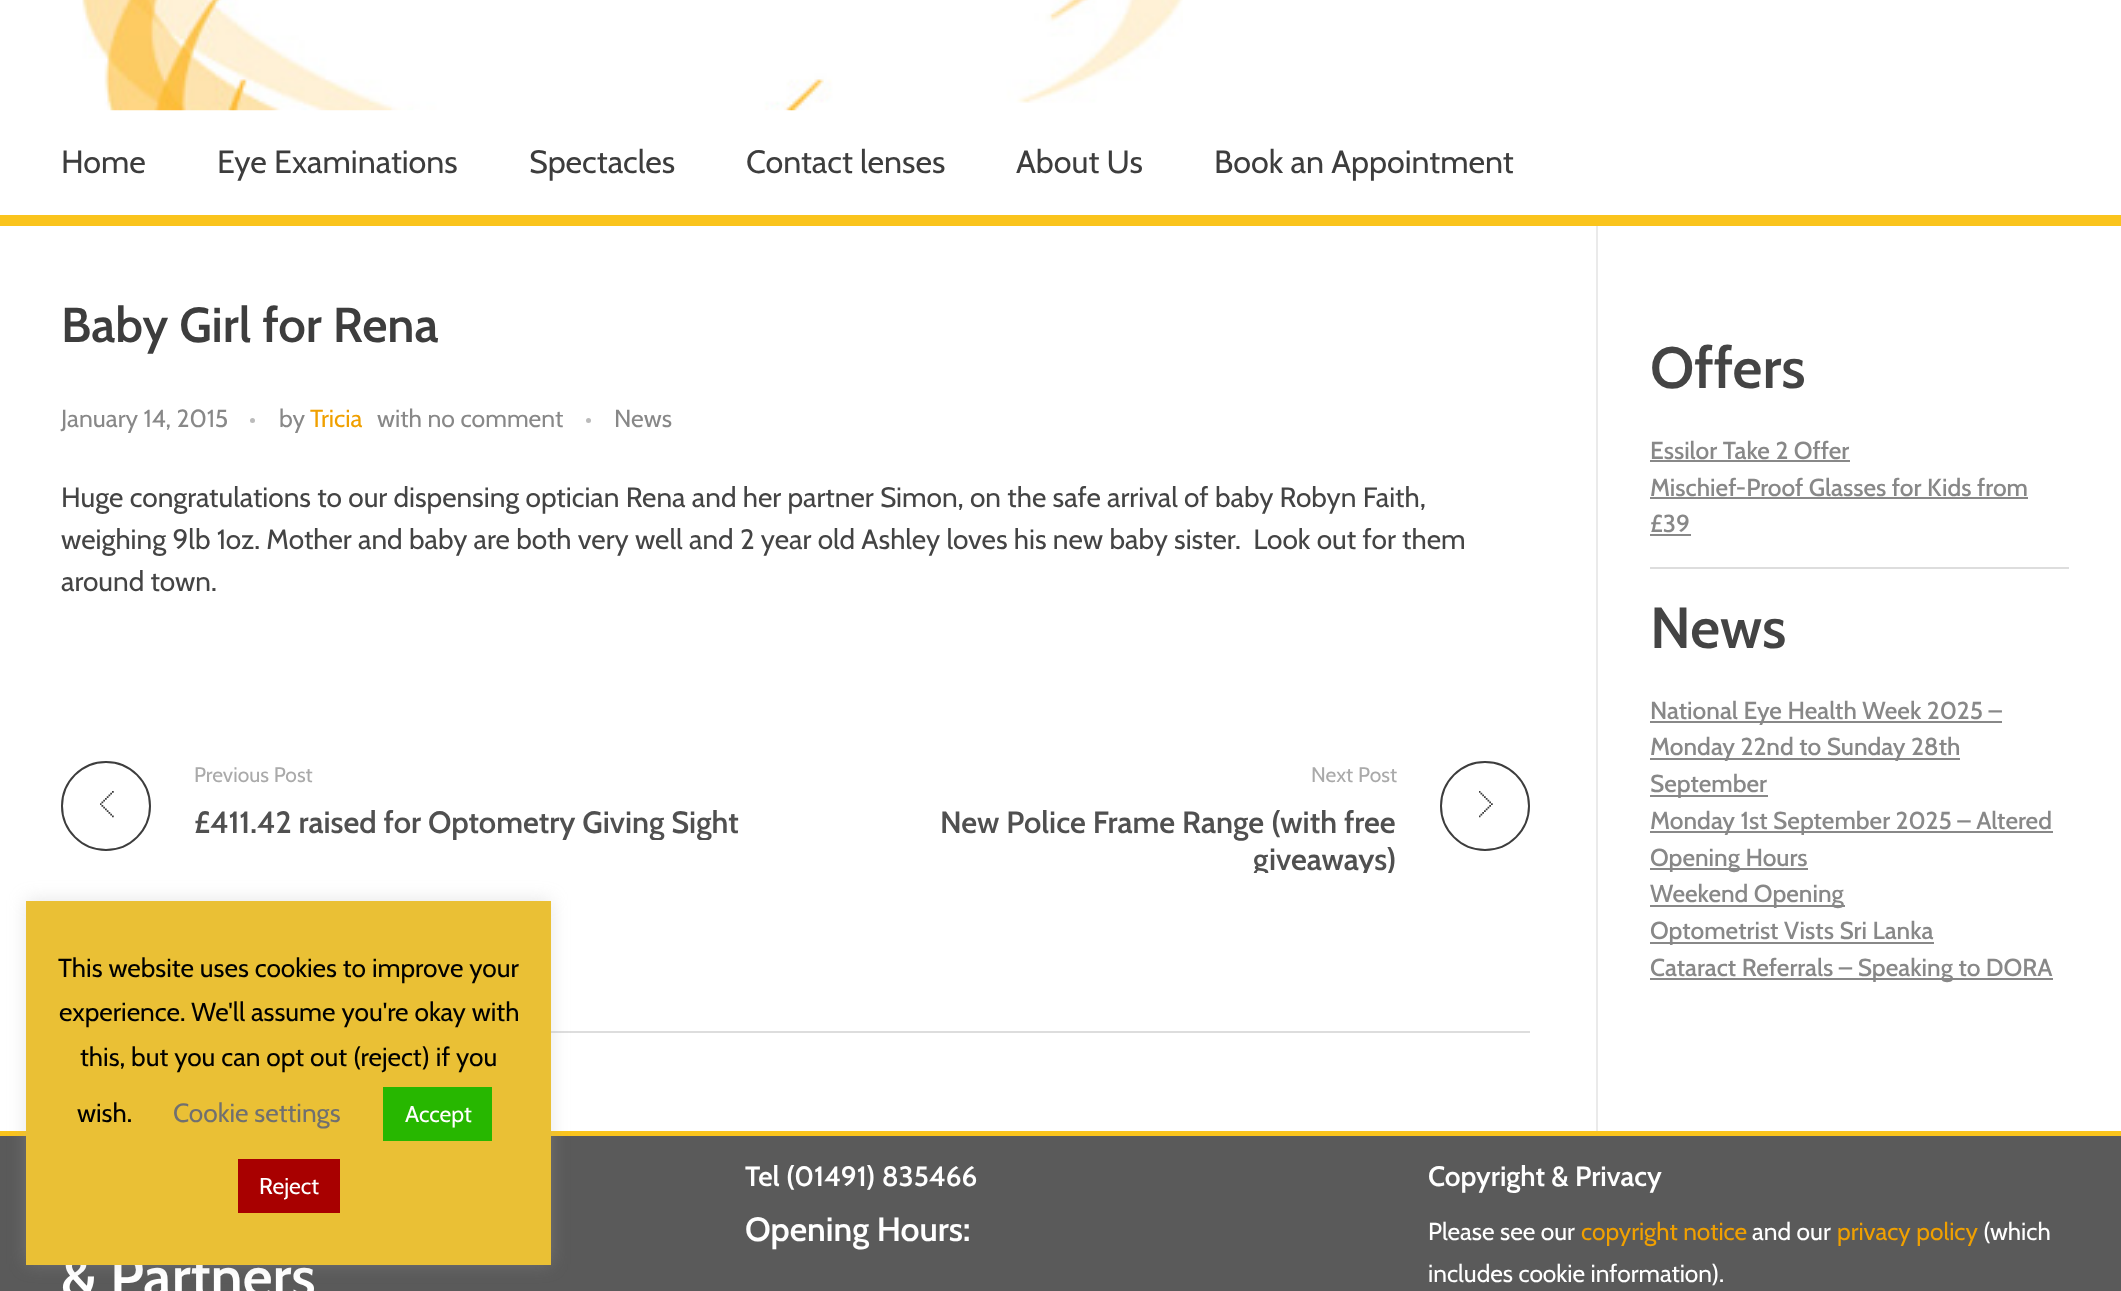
(async () => {
    const canvas = document.querySelector("canvas");
    canvas.width = 2121;
    canvas.height = 1291;
    const context = canvas.getContext("2d");
    context.miterLimit = 4;
    context.fontKerning = "normal";
    function write(s, x, y, font, color) {
        context.font = font;
        context.fillStyle = color;
        context.fillText(s, x, y);
    }
    function block(x, y, w, h, color) {
        context.fillStyle = color;
        context.fillRect(x, y, w, h);
    }
    async function photo(src, x, y, w, h) {
        const img = new Image();
        img.src = src;
        await img.decode();
        context.drawImage(img, x, y, w, h);
    }

    block(0, 0, 2121, 1291, "rgb(255, 255, 255)");
    block(0, 215, 2121, 11, "rgb(250, 196, 29)");
    await photo("media/1.png", 82, 0, 1101, 111);
    write("Home", 61, 173, "32.25px Cabin", "rgb(61, 61, 61)");
    write("Eye Examinations", 217, 173, "32.25px Cabin", "rgb(61, 61, 61)");
    write("Spectacles", 529, 173, "32.25px Cabin", "rgb(61, 61, 61)");
    write("Contact lenses", 746, 173, "32.25px Cabin", "rgb(61, 61, 61)");
    write("About Us", 1016, 173, "32.25px Cabin", "rgb(61, 61, 61)");
    write("Book an Appointment", 1214, 173, "32.25px Cabin", "rgb(61, 61, 61)");
    write("Baby Girl for Rena", 61, 342, "600 49px Cabin", "rgb(61, 61, 61)");
    write("January 14, 2015", 61, 427, "24.75px Cabin", "rgb(136, 136, 136)");
    context.fillStyle = "rgb(187, 187, 187)";
    context.beginPath();
    context.arc(252.5, 420.5, 2.5, 0, Math.PI * 2);
    context.fill();
    write("by", 279, 427, "24.75px Cabin", "rgb(136, 136, 136)");
    write("Tricia", 310, 427, "24.75px Cabin", "rgb(240, 160, 0)");
    write("with no comment", 377, 427, "24.75px Cabin", "rgb(136, 136, 136)");
    context.fillStyle = "rgb(187, 187, 187)";
    context.beginPath();
    context.arc(588.5, 420.5, 2.5, 0, Math.PI * 2);
    context.fill();
    write("News", 614, 427, "24.75px Cabin", "rgb(136, 136, 136)");
    write("Huge congratulations to our dispensing optician Rena and her partner Simon, on the safe arrival of baby Robyn Faith,", 61, 507, "28px Cabin", "rgb(68, 68, 68)");
    write("weighing 9lb 1oz. Mother and baby are both very well and 2 year old Ashley loves his new baby sister.  Look out for them", 61, 549, "28px Cabin", "rgb(68, 68, 68)");
    write("around town.", 61, 591, "28px Cabin", "rgb(68, 68, 68)");
    context.beginPath();
    context.arc(106, 806, 44, 0, Math.PI * 2);
    context.strokeStyle = "rgb(61, 61, 61)";
    context.lineWidth = 2;
    context.stroke();
    await photo("media/2.png", 100, 791, 14, 27);
    write("Previous Post", 194, 782, "21px Cabin", "rgb(170, 170, 170)");
    context.save();
    context.beginPath();
    context.rect(194, 803, 574, 37);
    context.clip();
    write("£411.42 raised for Optometry Giving Sight", 194, 833, "600 30.75px Cabin", "rgb(80, 80, 80)");
    context.restore();
    write("Next Post", 1311, 782, "21px Cabin", "rgb(170, 170, 170)");
    context.beginPath();
    context.arc(1485, 806, 44, 0, Math.PI * 2);
    context.stroke();
    await photo("media/3.png", 1479, 791, 14, 27);
    write("New Police Frame Range (with free", 940, 833, "600 30.75px Cabin", "rgb(80, 80, 80)");
    context.save();
    context.beginPath();
    context.rect(824, 803, 573, 70);
    context.clip();
    write("giveaways)", 1253, 870, "600 30.75px Cabin", "rgb(80, 80, 80)");
    context.restore();
    block(551, 1031, 979, 2, "rgb(221, 221, 221)");
    block(1596, 226, 2, 905, "rgb(234, 234, 234)");
    write("Offers", 1650, 388, "600 58px Cabin", "rgb(68, 68, 68)");
    write("Essilor Take 2 Offer", 1650, 459, "500 24.5px Cabin", "rgb(136, 136, 136)");
    block(1650, 460, 200, 2, "rgb(136, 136, 136)");
    write("Mischief-Proof Glasses for Kids from", 1650, 496, "500 24.5px Cabin", "rgb(136, 136, 136)");
    block(1650, 497, 378, 2, "rgb(136, 136, 136)");
    write("£39", 1650, 532, "500 24.5px Cabin", "rgb(136, 136, 136)");
    block(1650, 534, 41, 2, "rgb(136, 136, 136)");
    block(1650, 567, 419, 2, "rgb(221, 221, 221)");
    write("News", 1650, 648, "600 58px Cabin", "rgb(68, 68, 68)");
    block(1650, 721, 352, 2, "rgb(136, 136, 136)");
    write("National Eye Health Week 2025 –", 1650, 719, "500 24.5px Cabin", "rgb(136, 136, 136)");
    block(1650, 758, 310, 2, "rgb(136, 136, 136)");
    write("Monday 22nd to Sunday 28th", 1650, 755, "500 24.5px Cabin", "rgb(136, 136, 136)");
    block(1650, 795, 118, 2, "rgb(136, 136, 136)");
    write("September", 1650, 792, "500 24.5px Cabin", "rgb(136, 136, 136)");
    block(1650, 831, 403, 2, "rgb(136, 136, 136)");
    write("Monday 1st September 2025 – Altered", 1650, 829, "500 24.5px Cabin", "rgb(136, 136, 136)");
    block(1650, 868, 158, 2, "rgb(136, 136, 136)");
    write("Opening Hours", 1650, 866, "500 24.5px Cabin", "rgb(136, 136, 136)");
    block(1650, 905, 195, 2, "rgb(136, 136, 136)");
    write("Weekend Opening", 1650, 902, "500 24.5px Cabin", "rgb(136, 136, 136)");
    block(1650, 942, 284, 2, "rgb(136, 136, 136)");
    write("Optometrist Vists Sri Lanka", 1650, 939, "500 24.5px Cabin", "rgb(136, 136, 136)");
    block(1650, 978, 403, 2, "rgb(136, 136, 136)");
    write("Cataract Referrals – Speaking to DORA", 1650, 976, "500 24.5px Cabin", "rgb(136, 136, 136)");
    block(0, 1136, 2121, 155, "rgb(90, 90, 90)");
    block(0, 1131, 2121, 5, "rgb(250, 196, 29)");
    write("& Partners", 61, 1297, "600 58px Cabin", "rgb(255, 255, 255)");
    write("Tel (01491) 835466", 745, 1186, "600 28px Cabin", "rgb(255, 255, 255)");
    write("Opening Hours:", 745, 1241, "600 33.75px Cabin", "rgb(255, 255, 255)");
    write("Copyright & Privacy", 1428, 1186, "600 28px Cabin", "rgb(255, 255, 255)");
    write("Please see our", 1428, 1240, "24.5px Cabin", "rgb(255, 255, 255)");
    write("copyright notice", 1581, 1240, "24.5px Cabin", "rgb(240, 160, 0)");
    write("and our", 1752, 1240, "24.5px Cabin", "rgb(255, 255, 255)");
    write("privacy policy", 1837, 1240, "24.5px Cabin", "rgb(240, 160, 0)");
    write("(which", 1983, 1240, "24.5px Cabin", "rgb(255, 255, 255)");
    write("includes cookie information).", 1428, 1282, "24.5px Cabin", "rgb(255, 255, 255)");
    context.fillStyle = "rgba(172, 171, 171, 0.3)";
    context.filter = "blur(9px)";
    context.beginPath();
    context.rect(26, 900, 525, 364);
    context.fill();
    context.filter = "none";
    block(26, 901, 525, 364, "rgb(234, 192, 53)");
    write("This website uses cookies to improve your", 58, 977, "26.25px Cabin", "rgb(0, 0, 0)");
    write("experience. We'll assume you're okay with", 59, 1021, "26.25px Cabin", "rgb(0, 0, 0)");
    write("this, but you can opt out (reject) if you", 80, 1066, "26.25px Cabin", "rgb(0, 0, 0)");
    write("wish.", 77, 1122, "26.25px Cabin", "rgb(0, 0, 0)");
    write("Cookie settings", 173, 1122, "26.25px Cabin", "rgb(112, 112, 112)");
    block(383, 1087, 109, 54, "rgb(39, 183, 0)");
    write("Accept", 405, 1122, "23px Cabin", "rgb(255, 255, 255)");
    block(238, 1159, 102, 54, "rgb(168, 0, 0)");
    write("Reject", 259, 1194, "23px Cabin", "rgb(255, 255, 255)");
})();
